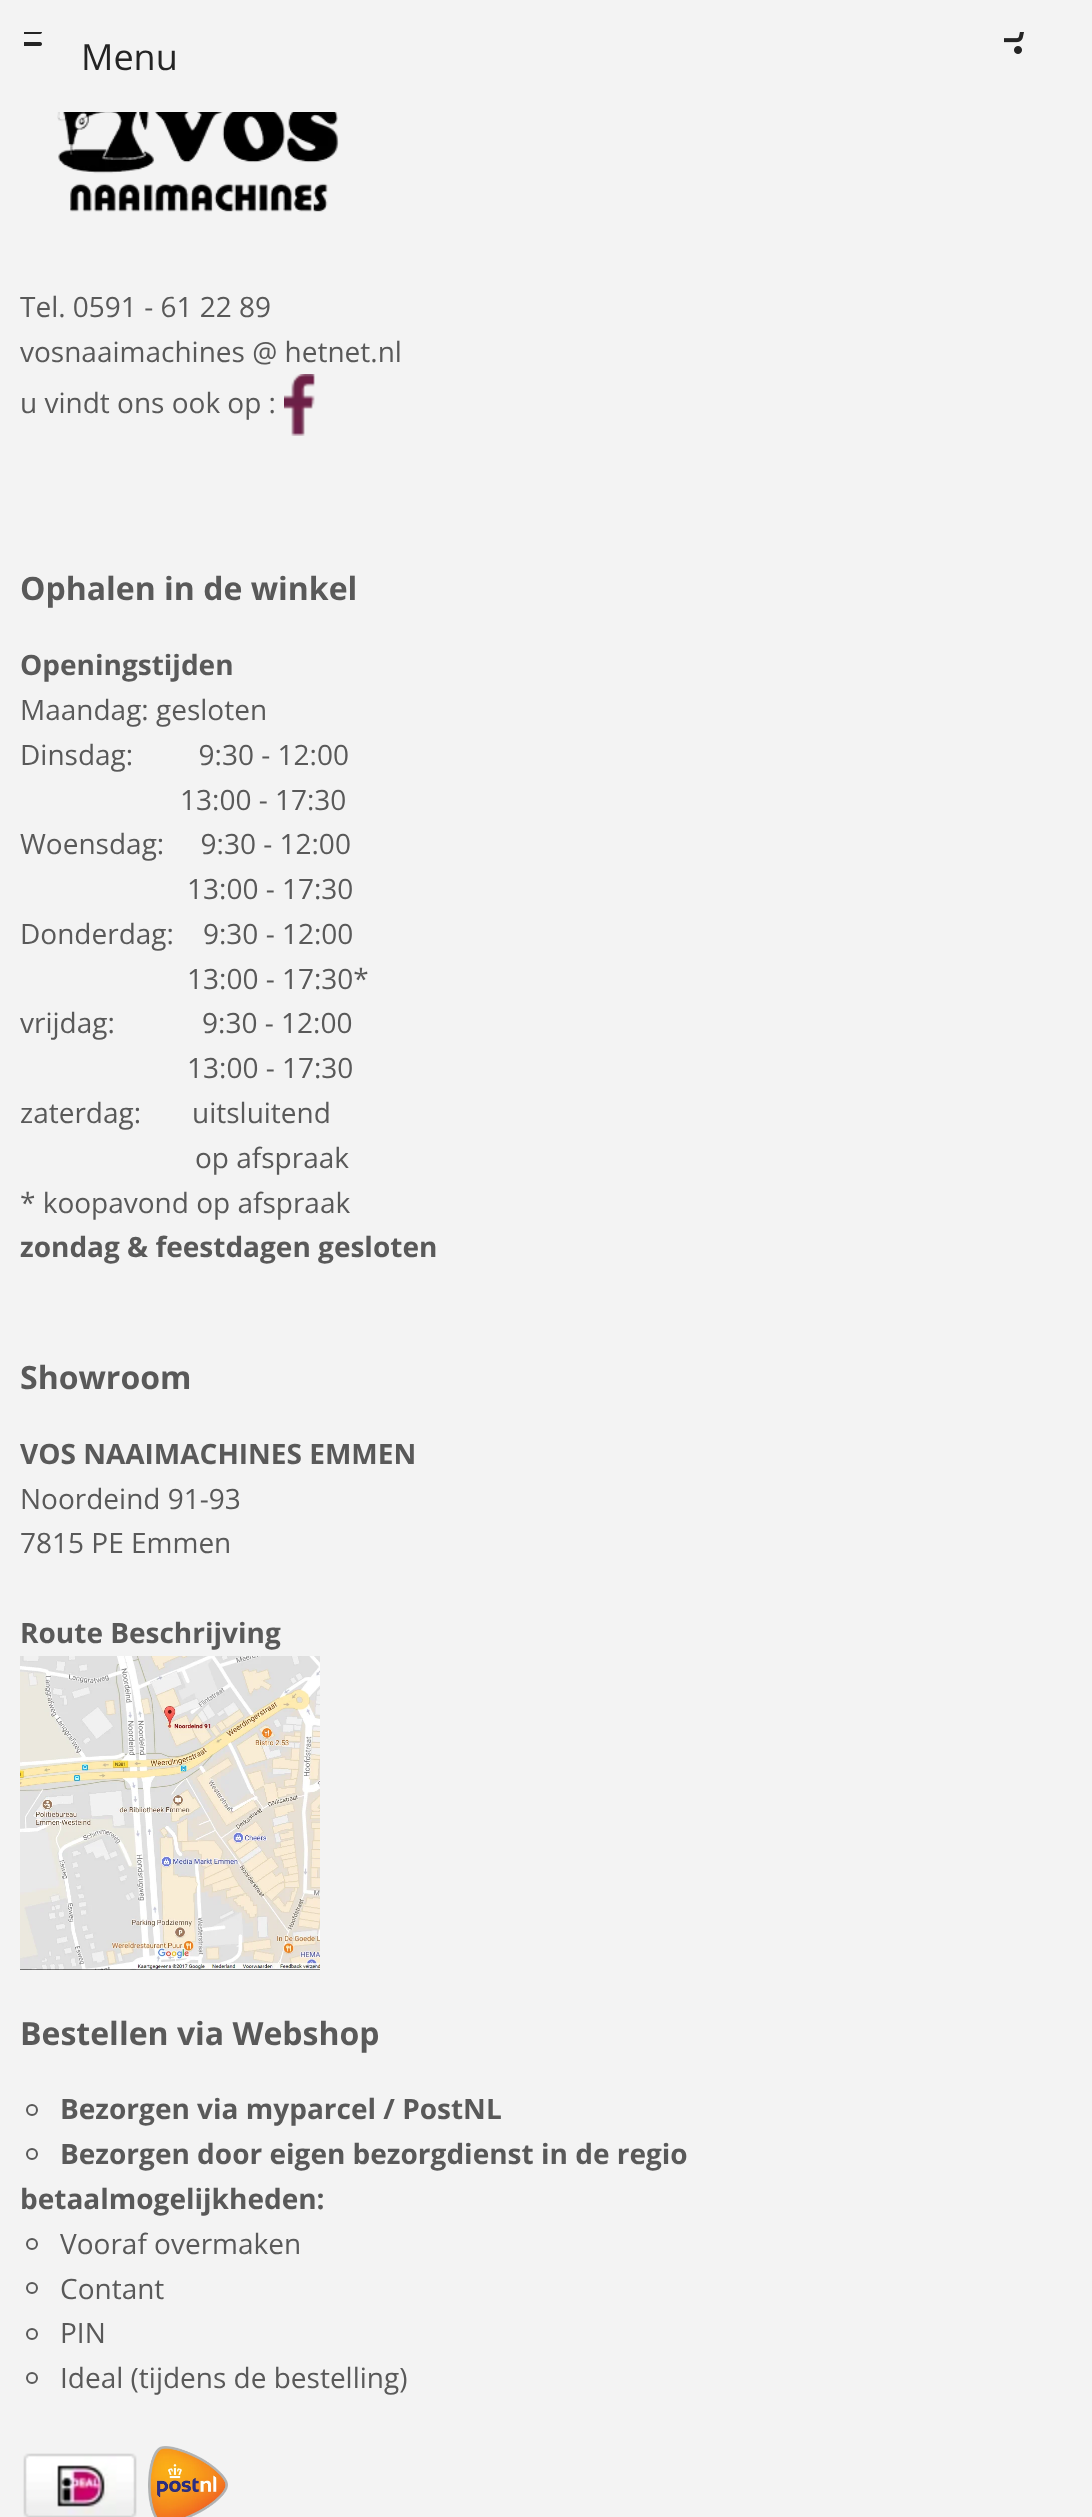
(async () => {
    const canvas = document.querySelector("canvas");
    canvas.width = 1092;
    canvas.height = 2517;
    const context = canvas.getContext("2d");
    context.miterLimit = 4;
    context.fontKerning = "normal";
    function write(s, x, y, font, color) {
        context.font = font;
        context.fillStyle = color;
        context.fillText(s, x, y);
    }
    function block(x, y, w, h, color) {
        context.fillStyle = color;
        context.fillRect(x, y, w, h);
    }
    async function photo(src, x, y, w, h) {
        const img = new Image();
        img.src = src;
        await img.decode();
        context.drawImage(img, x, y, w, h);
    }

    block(0, 0, 1092, 2517, "rgb(243, 243, 243)");
    await photo("media/1.png", 24, 32, 18, 14);
    write("Menu", 81, 70, "36px Open Sans", "rgb(36, 36, 36)");
    await photo("media/2.png", 1004, 32, 20, 22);
    await photo("media/3.png", 57, 112, 282, 100);
    write("Tel. 0591 - 61 22 89", 20, 317, "28px Open Sans", "rgb(89, 89, 89)");
    write("vosnaaimachines @ hetnet.nl", 20, 362, "28px Open Sans", "rgb(89, 89, 89)");
    write("u vindt ons ook op :", 20, 413, "28px Open Sans", "rgb(89, 89, 89)");
    await photo("media/4.png", 284, 374, 31, 62);
    write("Ophalen in de winkel", 20, 600, "bold 32px Open Sans", "rgb(89, 89, 89)");
    write("Openingstijden", 20, 675, "bold 28px Open Sans", "rgb(89, 89, 89)");
    write("Maandag: gesloten", 20, 720, "28px Open Sans", "rgb(89, 89, 89)");
    write("Dinsdag:         9:30 - 12:00", 20, 765, "28px Open Sans", "rgb(89, 89, 89)");
    write("13:00 - 17:30", 180, 810, "28px Open Sans", "rgb(89, 89, 89)");
    write("Woensdag:     9:30 - 12:00", 20, 854, "28px Open Sans", "rgb(89, 89, 89)");
    write("13:00 - 17:30", 187, 899, "28px Open Sans", "rgb(89, 89, 89)");
    write("Donderdag:    9:30 - 12:00", 20, 944, "28px Open Sans", "rgb(89, 89, 89)");
    write("13:00 - 17:30*", 187, 989, "28px Open Sans", "rgb(89, 89, 89)");
    write("vrijdag:            9:30 - 12:00", 20, 1033, "28px Open Sans", "rgb(89, 89, 89)");
    write("13:00 - 17:30", 187, 1078, "28px Open Sans", "rgb(89, 89, 89)");
    write("zaterdag:       uitsluitend", 20, 1123, "28px Open Sans", "rgb(89, 89, 89)");
    write("op afspraak", 195, 1168, "28px Open Sans", "rgb(89, 89, 89)");
    write("* koopavond op afspraak", 20, 1213, "28px Open Sans", "rgb(89, 89, 89)");
    write("zondag & feestdagen gesloten", 20, 1257, "bold 28px Open Sans", "rgb(89, 89, 89)");
    write("Showroom", 20, 1389, "bold 32px Open Sans", "rgb(89, 89, 89)");
    write("VOS NAAIMACHINES EMMEN", 20, 1464, "bold 28px Open Sans", "rgb(89, 89, 89)");
    write("Noordeind 91-93", 20, 1509, "28px Open Sans", "rgb(89, 89, 89)");
    write("7815 PE Emmen", 20, 1553, "28px Open Sans", "rgb(89, 89, 89)");
    write("Route Beschrijving", 20, 1643, "bold 28px Open Sans", "rgb(89, 89, 89)");
    await photo("media/5.png", 20, 1656, 300, 314);
    write("Bestellen via Webshop", 20, 2045, "bold 32px Open Sans", "rgb(89, 89, 89)");
    context.beginPath();
    context.arc(32, 2110, 5, 0, Math.PI * 2);
    context.strokeStyle = "rgb(89, 89, 89)";
    context.lineWidth = 2;
    context.stroke();
    write("Bezorgen via myparcel / PostNL", 60, 2119, "bold 28px Open Sans", "rgb(89, 89, 89)");
    context.beginPath();
    context.arc(32, 2154, 5, 0, Math.PI * 2);
    context.stroke();
    write("Bezorgen door eigen bezorgdienst in de regio", 60, 2164, "bold 28px Open Sans", "rgb(89, 89, 89)");
    write("betaalmogelijkheden:", 20, 2209, "bold 28px Open Sans", "rgb(89, 89, 89)");
    context.beginPath();
    context.arc(32, 2244, 5, 0, Math.PI * 2);
    context.stroke();
    write("Vooraf overmaken", 60, 2254, "28px Open Sans", "rgb(89, 89, 89)");
    context.beginPath();
    context.arc(32, 2288, 5, 0, Math.PI * 2);
    context.stroke();
    write("Contant", 60, 2299, "28px Open Sans", "rgb(89, 89, 89)");
    context.beginPath();
    context.arc(32, 2334, 5, 0, Math.PI * 2);
    context.stroke();
    write("PIN", 60, 2343, "28px Open Sans", "rgb(89, 89, 89)");
    context.beginPath();
    context.arc(32, 2378, 5, 0, Math.PI * 2);
    context.stroke();
    write("Ideal (tijdens de bestelling)", 60, 2388, "28px Open Sans", "rgb(89, 89, 89)");
    await photo("media/6.png", 23, 2453, 114, 64);
    await photo("media/7.png", 148, 2446, 80, 71);
})();
